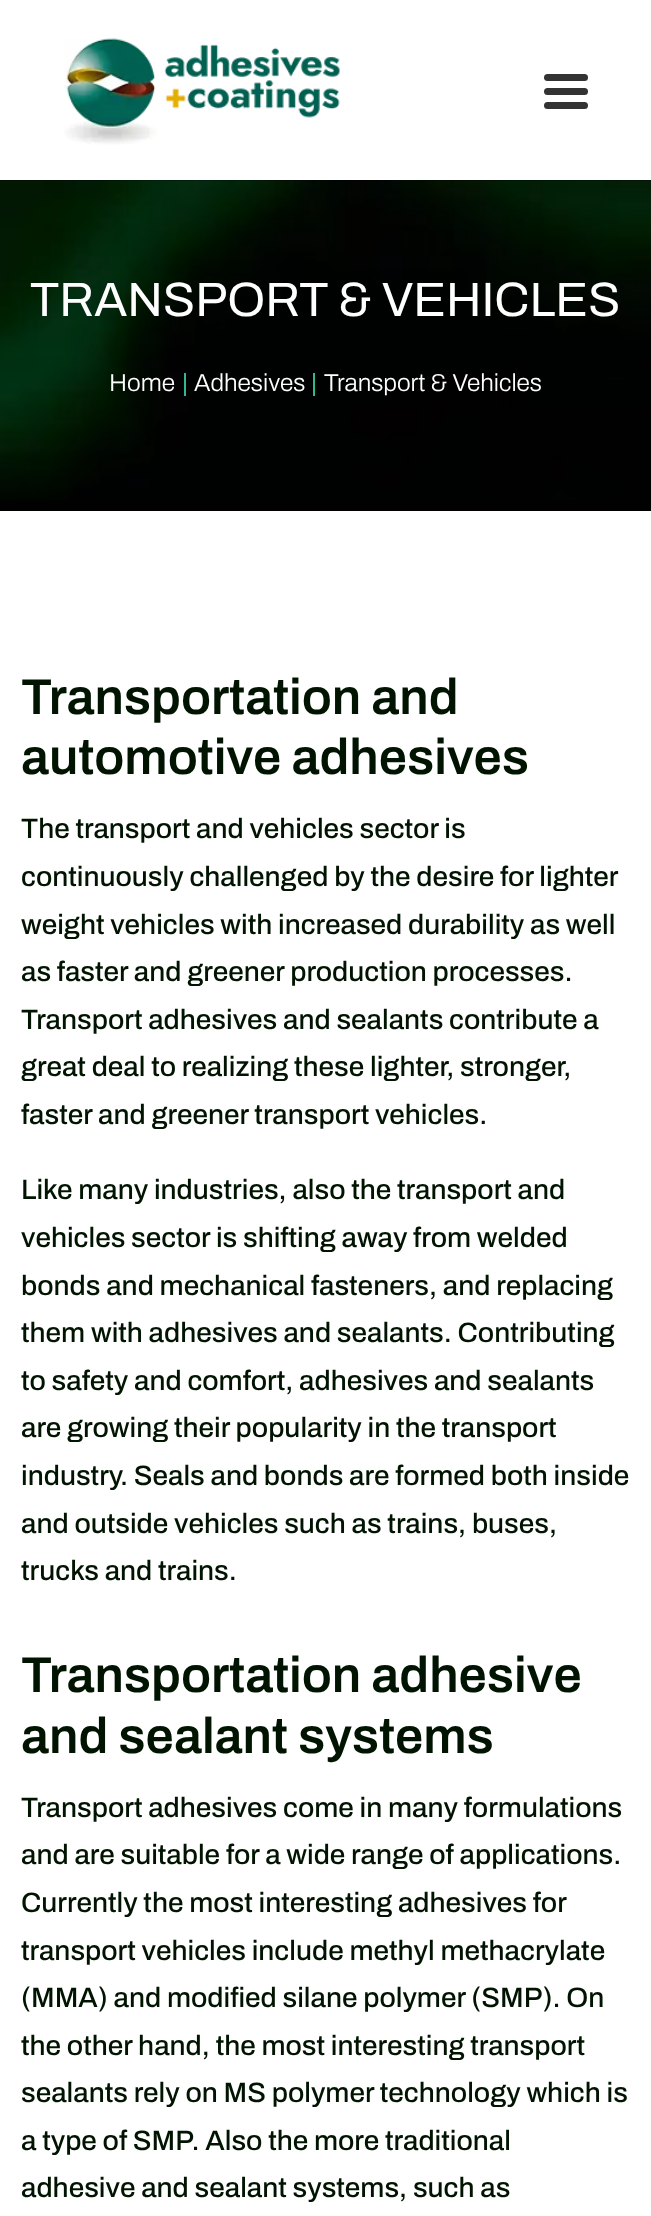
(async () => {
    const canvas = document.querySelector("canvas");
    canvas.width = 651;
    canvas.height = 2216;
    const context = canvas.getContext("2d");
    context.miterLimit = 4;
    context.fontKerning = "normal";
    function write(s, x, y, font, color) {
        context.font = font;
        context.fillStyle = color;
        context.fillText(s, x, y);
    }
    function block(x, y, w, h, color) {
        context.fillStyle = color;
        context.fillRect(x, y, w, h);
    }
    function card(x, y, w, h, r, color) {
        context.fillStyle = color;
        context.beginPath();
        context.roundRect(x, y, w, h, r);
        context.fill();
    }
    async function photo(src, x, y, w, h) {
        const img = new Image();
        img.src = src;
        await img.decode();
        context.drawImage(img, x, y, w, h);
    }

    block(0, 0, 651, 2216, "rgb(255, 255, 255)");
    await photo("media/1.png", 64, 38, 276, 107);
    card(544, 74, 44, 7, 3.5, "rgb(51, 51, 51)");
    card(544, 88, 44, 7, 3.5, "rgb(51, 51, 51)");
    card(544, 102, 44, 7, 3.5, "rgb(51, 51, 51)");
    block(0, 180, 651, 331, "rgb(1, 1, 1)");
    await photo("media/2.png", 0, 180, 651, 320);
    write("TRANSPORT & VEHICLES", 30, 316, "48.25px Archivo", "rgb(255, 255, 255)");
    write("Home", 109, 391, "300 24.5px Archivo", "rgb(255, 255, 255)");
    block(184, 373, 2, 23, "rgb(49, 184, 146)");
    write("Adhesives", 194, 391, "300 24.5px Archivo", "rgb(255, 255, 255)");
    block(313, 373, 2, 23, "rgb(49, 184, 146)");
    write("Transport & Vehicles", 324, 391, "300 24.5px Archivo", "rgb(255, 255, 255)");
    write("Transportation and", 21, 714, "600 50.4px Archivo", "rgb(0, 20, 1)");
    write("automotive adhesives", 21, 774, "600 50.4px Archivo", "rgb(0, 20, 1)");
    write("The transport and vehicles sector is", 21, 838, "500 28px Archivo", "rgb(0, 20, 1)");
    write("continuously challenged by the desire for lighter", 21, 886, "500 28px Archivo", "rgb(0, 20, 1)");
    write("weight vehicles with increased durability as well", 21, 934, "500 28px Archivo", "rgb(0, 20, 1)");
    write("as faster and greener production processes.", 21, 981, "500 28px Archivo", "rgb(0, 20, 1)");
    write("Transport adhesives and sealants contribute a", 21, 1029, "500 28px Archivo", "rgb(0, 20, 1)");
    write("great deal to realizing these lighter, stronger,", 21, 1076, "500 28px Archivo", "rgb(0, 20, 1)");
    write("faster and greener transport vehicles.", 21, 1124, "500 28px Archivo", "rgb(0, 20, 1)");
    write("Like many industries, also the transport and", 21, 1199, "500 28px Archivo", "rgb(0, 20, 1)");
    write("vehicles sector is shifting away from welded", 21, 1247, "500 28px Archivo", "rgb(0, 20, 1)");
    write("bonds and mechanical fasteners, and replacing", 21, 1295, "500 28px Archivo", "rgb(0, 20, 1)");
    write("them with adhesives and sealants. Contributing", 21, 1342, "500 28px Archivo", "rgb(0, 20, 1)");
    write("to safety and comfort, adhesives and sealants", 21, 1390, "500 28px Archivo", "rgb(0, 20, 1)");
    write("are growing their popularity in the transport", 21, 1437, "500 28px Archivo", "rgb(0, 20, 1)");
    write("industry. Seals and bonds are formed both inside", 21, 1485, "500 28px Archivo", "rgb(0, 20, 1)");
    write("and outside vehicles such as trains, buses,", 21, 1533, "500 28px Archivo", "rgb(0, 20, 1)");
    write("trucks and trains.", 21, 1580, "500 28px Archivo", "rgb(0, 20, 1)");
    write("Transportation adhesive", 21, 1692, "600 50.4px Archivo", "rgb(0, 20, 1)");
    write("and sealant systems", 21, 1753, "600 50.4px Archivo", "rgb(0, 20, 1)");
    write("Transport adhesives come in many formulations", 21, 1817, "500 28px Archivo", "rgb(0, 20, 1)");
    write("and are suitable for a wide range of applications.", 21, 1864, "500 28px Archivo", "rgb(0, 20, 1)");
    write("Currently the most interesting adhesives for", 21, 1912, "500 28px Archivo", "rgb(0, 20, 1)");
    write("transport vehicles include methyl methacrylate", 21, 1960, "500 28px Archivo", "rgb(0, 20, 1)");
    write("(MMA) and modified silane polymer (SMP). On", 21, 2007, "500 28px Archivo", "rgb(0, 20, 1)");
    write("the other hand, the most interesting transport", 21, 2055, "500 28px Archivo", "rgb(0, 20, 1)");
    write("sealants rely on MS polymer technology which is", 21, 2102, "500 28px Archivo", "rgb(0, 20, 1)");
    write("a type of SMP. Also the more traditional", 21, 2150, "500 28px Archivo", "rgb(0, 20, 1)");
    write("adhesive and sealant systems, such as", 21, 2197, "500 28px Archivo", "rgb(0, 20, 1)");
})();
